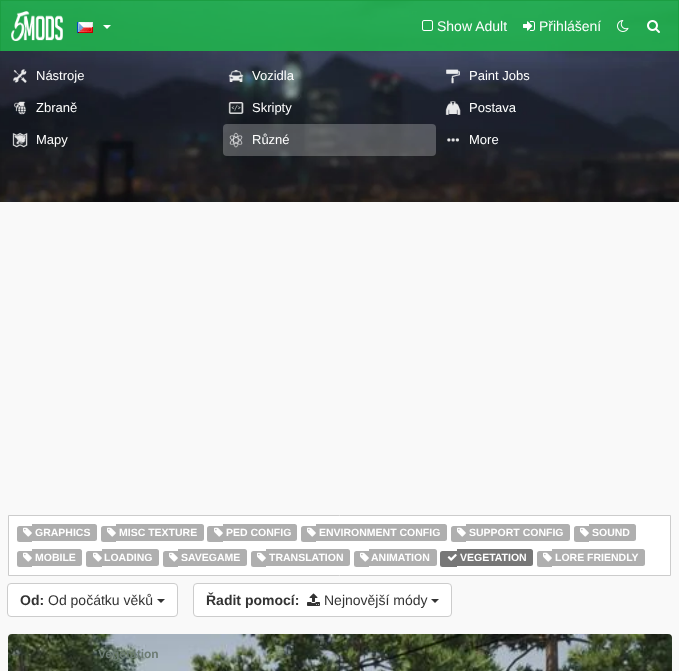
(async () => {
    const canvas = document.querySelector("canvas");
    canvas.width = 679;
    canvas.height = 671;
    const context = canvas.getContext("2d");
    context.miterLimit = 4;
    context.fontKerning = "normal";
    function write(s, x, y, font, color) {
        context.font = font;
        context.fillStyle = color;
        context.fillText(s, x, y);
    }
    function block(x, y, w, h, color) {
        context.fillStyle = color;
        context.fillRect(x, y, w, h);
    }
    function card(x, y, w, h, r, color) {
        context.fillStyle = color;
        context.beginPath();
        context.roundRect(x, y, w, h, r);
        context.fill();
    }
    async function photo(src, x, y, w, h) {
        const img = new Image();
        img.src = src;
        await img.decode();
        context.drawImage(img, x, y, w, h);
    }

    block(0, 0, 679, 671, "rgb(249, 249, 249)");
    await photo("media/7.png", 0, 1, 679, 201);
    block(1, 1, 677, 50, "rgba(32, 186, 78, 0.85)");
    block(0, 0, 679, 1, "rgb(27, 158, 66)");
    block(678, 0, 1, 51, "rgb(27, 158, 66)");
    block(0, 0, 1, 51, "rgb(27, 158, 66)");
    await photo("media/1.png", 11, 11, 52, 30);
    await photo("media/2.png", 77, 22, 16, 11);
    context.fillStyle = "rgb(255, 255, 255)";
    context.beginPath();
    context.moveTo(103, 25);
    context.lineTo(111, 25);
    context.lineTo(107, 29);
    context.closePath();
    context.fill();
    await photo("media/3.png", 422, 20, 11, 11);
    write("Show Adult", 437, 31, "14px Liberation Sans", "rgb(255, 255, 255)");
    await photo("media/4.png", 523, 21, 12, 10);
    write("Přihlášení", 539, 31, "14px Liberation Sans", "rgb(255, 255, 255)");
    await photo("media/5.png", 617, 20, 12, 12);
    await photo("media/6.png", 647, 20, 13, 13);
    await photo("media/8.png", 13, 69, 14, 14);
    write("Nástroje", 36, 80, "13px Liberation Sans", "rgb(255, 255, 255)");
    await photo("media/9.png", 228, 70, 16, 12);
    write("Vozidla", 252, 80, "13px Liberation Sans", "rgb(255, 255, 255)");
    await photo("media/10.png", 446, 69, 14, 15);
    write("Paint Jobs", 469, 80, "13px Liberation Sans", "rgb(255, 255, 255)");
    await photo("media/11.png", 14, 101, 12, 14);
    write("Zbraně", 36, 112, "13px Liberation Sans", "rgb(255, 255, 255)");
    await photo("media/12.png", 228, 102, 16, 12);
    write("Skripty", 252, 112, "13px Liberation Sans", "rgb(255, 255, 255)");
    await photo("media/13.png", 445, 101, 16, 14);
    write("Postava", 469, 112, "13px Liberation Sans", "rgb(255, 255, 255)");
    await photo("media/14.png", 12, 132, 16, 16);
    write("Mapy", 36, 144, "13px Liberation Sans", "rgb(255, 255, 255)");
    card(223, 124, 213, 32, 4, "rgba(255, 255, 255, 0.25)");
    await photo("media/15.png", 229, 132, 14, 16);
    write("Různé", 252, 144, "13px Liberation Sans", "rgb(255, 255, 255)");
    await photo("media/16.png", 447, 138, 12, 4);
    write("More", 469, 144, "13px Liberation Sans", "rgb(255, 255, 255)");
    context.beginPath();
    context.rect(8.5, 515.5, 662, 60);
    context.fill();
    context.strokeStyle = "rgb(204, 204, 204)";
    context.stroke();
    context.fillStyle = "rgb(175, 175, 175)";
    context.beginPath();
    context.roundRect(17, 526, 15, 16, [2.5, 0, 0, 2.5]);
    context.fill();
    context.beginPath();
    context.roundRect(32, 524, 65, 17, [0, 2.5, 2.5, 0]);
    context.fill();
    await photo("media/17.png", 23, 527, 9, 10);
    write("GRAPHICS", 35, 536, "bold 10.5px Liberation Sans", "rgb(255, 255, 255)");
    context.fillStyle = "rgb(175, 175, 175)";
    context.beginPath();
    context.roundRect(101, 526, 15, 16, [2.5, 0, 0, 2.5]);
    context.fill();
    context.beginPath();
    context.roundRect(116, 524, 88, 17, [0, 2.5, 2.5, 0]);
    context.fill();
    await photo("media/17.png", 107, 527, 9, 10);
    write("MISC TEXTURE", 119, 536, "bold 10.5px Liberation Sans", "rgb(255, 255, 255)");
    context.fillStyle = "rgb(175, 175, 175)";
    context.beginPath();
    context.roundRect(207, 526, 16, 16, [2.5, 0, 0, 2.5]);
    context.fill();
    context.beginPath();
    context.roundRect(223, 524, 74, 17, [0, 2.5, 2.5, 0]);
    context.fill();
    await photo("media/17.png", 214, 527, 9, 10);
    write("PED CONFIG", 226, 536, "bold 10.5px Liberation Sans", "rgb(255, 255, 255)");
    context.fillStyle = "rgb(175, 175, 175)";
    context.beginPath();
    context.roundRect(301, 526, 15, 16, [2.5, 0, 0, 2.5]);
    context.fill();
    context.beginPath();
    context.roundRect(316, 524, 131, 17, [0, 2.5, 2.5, 0]);
    context.fill();
    await photo("media/17.png", 307, 527, 9, 10);
    write("ENVIRONMENT CONFIG", 319, 536, "bold 10.5px Liberation Sans", "rgb(255, 255, 255)");
    context.fillStyle = "rgb(175, 175, 175)";
    context.beginPath();
    context.roundRect(451, 526, 15, 16, [2.5, 0, 0, 2.5]);
    context.fill();
    context.beginPath();
    context.roundRect(466, 524, 104, 17, [0, 2.5, 2.5, 0]);
    context.fill();
    await photo("media/17.png", 457, 527, 9, 10);
    write("SUPPORT CONFIG", 469, 536, "bold 10.5px Liberation Sans", "rgb(255, 255, 255)");
    context.fillStyle = "rgb(175, 175, 175)";
    context.beginPath();
    context.roundRect(574, 526, 15, 16, [2.5, 0, 0, 2.5]);
    context.fill();
    context.beginPath();
    context.roundRect(589, 524, 47, 17, [0, 2.5, 2.5, 0]);
    context.fill();
    await photo("media/17.png", 580, 527, 9, 10);
    write("SOUND", 592, 536, "bold 10.5px Liberation Sans", "rgb(255, 255, 255)");
    context.fillStyle = "rgb(175, 175, 175)";
    context.beginPath();
    context.roundRect(17, 551, 15, 16, [2.5, 0, 0, 2.5]);
    context.fill();
    context.beginPath();
    context.roundRect(32, 549, 50, 17, [0, 2.5, 2.5, 0]);
    context.fill();
    await photo("media/17.png", 23, 552, 9, 10);
    write("MOBILE", 35, 561, "bold 10.5px Liberation Sans", "rgb(255, 255, 255)");
    context.fillStyle = "rgb(175, 175, 175)";
    context.beginPath();
    context.roundRect(86, 551, 16, 16, [2.5, 0, 0, 2.5]);
    context.fill();
    context.beginPath();
    context.roundRect(102, 549, 57, 17, [0, 2.5, 2.5, 0]);
    context.fill();
    await photo("media/17.png", 93, 552, 9, 10);
    write("LOADING", 104, 561, "bold 10.5px Liberation Sans", "rgb(255, 255, 255)");
    context.fillStyle = "rgb(175, 175, 175)";
    context.beginPath();
    context.roundRect(163, 551, 15, 16, [2.5, 0, 0, 2.5]);
    context.fill();
    context.beginPath();
    context.roundRect(178, 549, 69, 17, [0, 2.5, 2.5, 0]);
    context.fill();
    await photo("media/17.png", 169, 552, 9, 10);
    write("SAVEGAME", 181, 561, "bold 10.5px Liberation Sans", "rgb(255, 255, 255)");
    context.fillStyle = "rgb(175, 175, 175)";
    context.beginPath();
    context.roundRect(251, 551, 15, 16, [2.5, 0, 0, 2.5]);
    context.fill();
    context.beginPath();
    context.roundRect(266, 549, 84, 17, [0, 2.5, 2.5, 0]);
    context.fill();
    await photo("media/17.png", 257, 552, 9, 10);
    write("TRANSLATION", 269, 561, "bold 10.5px Liberation Sans", "rgb(255, 255, 255)");
    context.fillStyle = "rgb(175, 175, 175)";
    context.beginPath();
    context.roundRect(354, 551, 15, 16, [2.5, 0, 0, 2.5]);
    context.fill();
    context.beginPath();
    context.roundRect(369, 549, 68, 17, [0, 2.5, 2.5, 0]);
    context.fill();
    await photo("media/17.png", 360, 552, 9, 10);
    write("ANIMATION", 371, 561, "bold 10.5px Liberation Sans", "rgb(255, 255, 255)");
    context.fillStyle = "rgb(119, 119, 119)";
    context.beginPath();
    context.roundRect(440, 551, 17, 16, [2.5, 0, 0, 2.5]);
    context.fill();
    context.beginPath();
    context.roundRect(457, 549, 76, 17, [0, 2.5, 2.5, 0]);
    context.fill();
    await photo("media/18.png", 447, 554, 10, 7);
    write("VEGETATION", 460, 561, "bold 10.5px Liberation Sans", "rgb(255, 255, 255)");
    context.fillStyle = "rgb(175, 175, 175)";
    context.beginPath();
    context.roundRect(537, 551, 15, 16, [2.5, 0, 0, 2.5]);
    context.fill();
    context.beginPath();
    context.roundRect(552, 549, 93, 17, [0, 2.5, 2.5, 0]);
    context.fill();
    await photo("media/17.png", 543, 552, 9, 10);
    write("LORE FRIENDLY", 555, 561, "bold 10.5px Liberation Sans", "rgb(255, 255, 255)");
    context.beginPath();
    context.roundRect(7.5, 583.5, 170, 33, 3.5);
    context.fill();
    context.stroke();
    write("Od:", 20, 605, "bold 14px Liberation Sans", "rgb(51, 51, 51)");
    write("Od počátku věků", 48, 605, "14px Liberation Sans", "rgb(51, 51, 51)");
    context.beginPath();
    context.moveTo(157, 599);
    context.lineTo(165, 599);
    context.lineTo(161, 603);
    context.closePath();
    context.fill();
    context.fillStyle = "rgb(255, 255, 255)";
    context.beginPath();
    context.roundRect(193.5, 583.5, 258, 33, 3.5);
    context.fill();
    context.stroke();
    write("Řadit pomocí:", 206, 605, "bold 14px Liberation Sans", "rgb(51, 51, 51)");
    await photo("media/19.png", 307, 593, 13, 13);
    write("Nejnovější módy", 324, 605, "14px Liberation Sans", "rgb(51, 51, 51)");
    context.beginPath();
    context.moveTo(431, 599);
    context.lineTo(439, 599);
    context.lineTo(435, 603);
    context.closePath();
    context.fill();
    await photo("media/20.png", 8, 634, 664, 37);
    write("Vegetation", 98, 658, "bold 12px Liberation Sans", "rgb(109, 124, 116)");
})();
